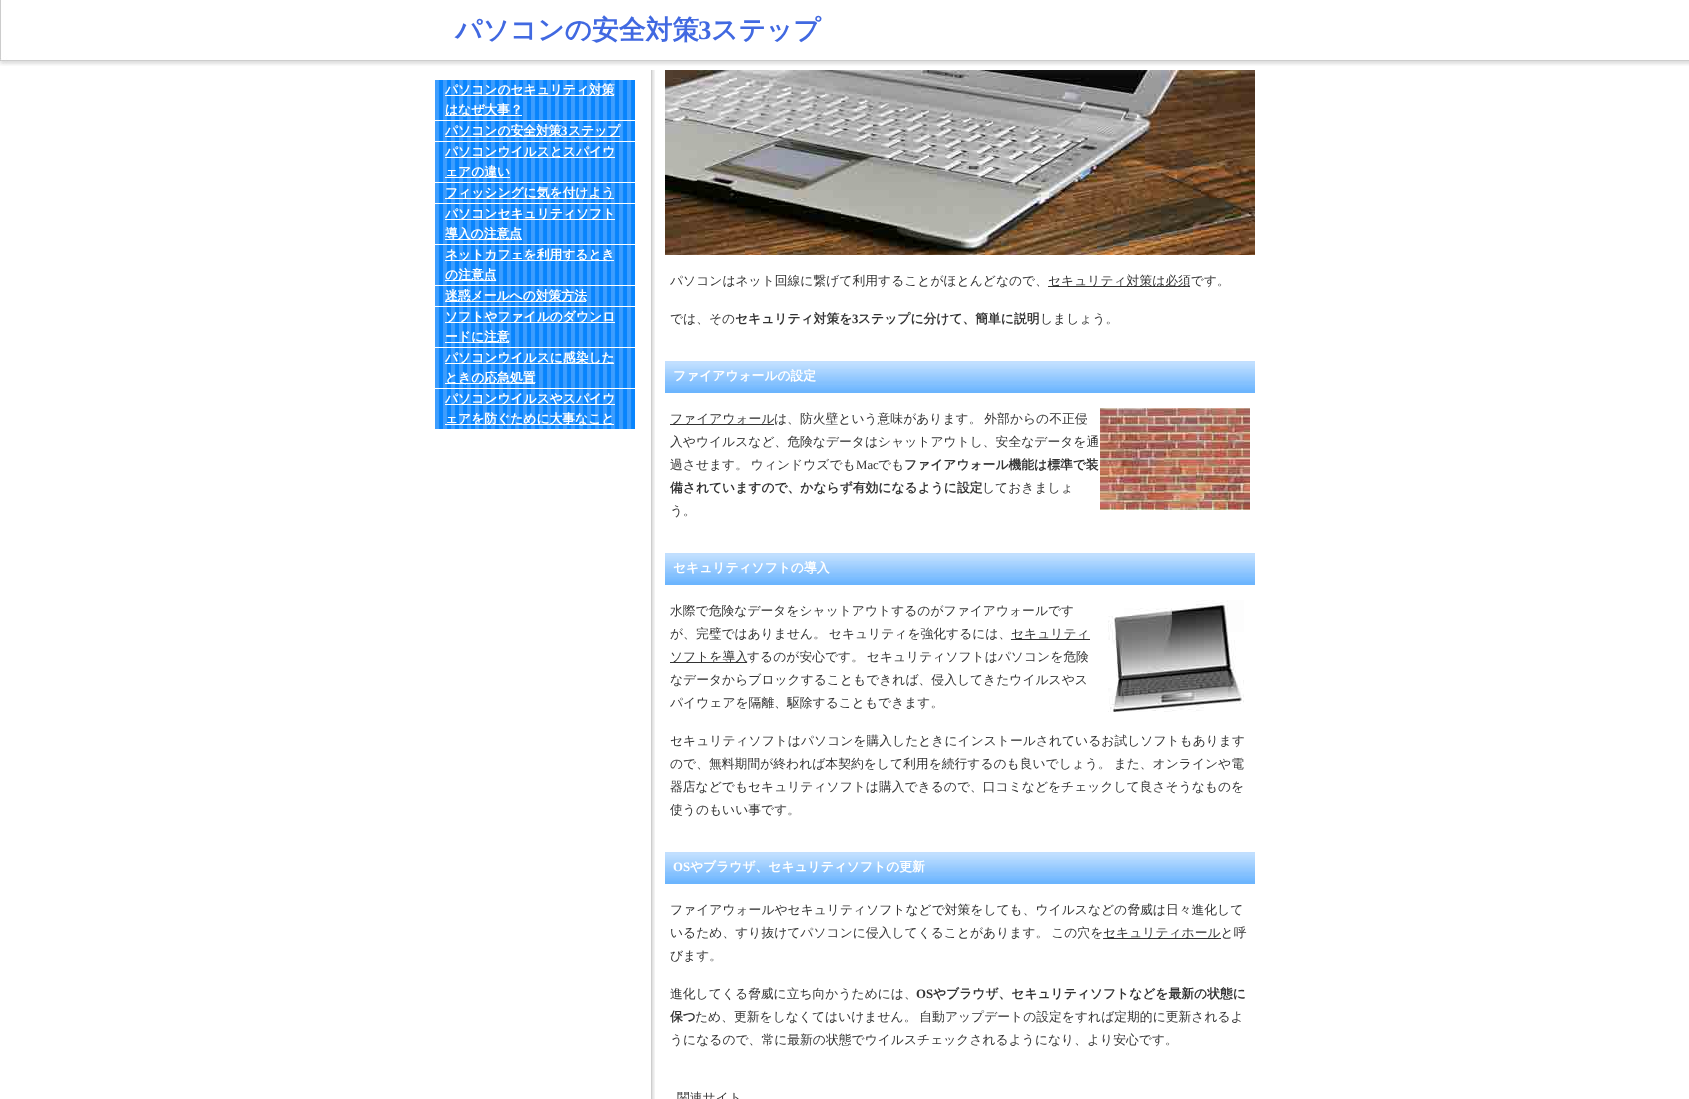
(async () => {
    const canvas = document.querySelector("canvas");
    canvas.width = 1689;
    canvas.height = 1099;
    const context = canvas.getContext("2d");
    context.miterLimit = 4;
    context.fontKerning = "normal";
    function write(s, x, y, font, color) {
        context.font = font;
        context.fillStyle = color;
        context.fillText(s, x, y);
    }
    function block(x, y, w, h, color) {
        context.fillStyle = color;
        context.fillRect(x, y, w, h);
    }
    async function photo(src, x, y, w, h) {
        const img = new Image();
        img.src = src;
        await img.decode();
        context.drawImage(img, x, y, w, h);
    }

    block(0, 0, 1689, 1099, "rgb(255, 255, 255)");
    await photo("media/1.png", 0, 0, 1689, 66);
    write("パソコンの安全対策", 455, 39, "bold 26.75px WenQuanYi Zen Hei", "rgb(65, 105, 225)");
    write("3", 698, 39, "bold 26.75px Liberation Serif", "rgb(65, 105, 225)");
    write("ステップ", 711, 39, "bold 26.75px WenQuanYi Zen Hei", "rgb(65, 105, 225)");
    await photo("media/2.png", 651, 70, 4, 1029);
    await photo("media/3.png", 435, 80, 200, 40);
    block(445, 95, 169, 1, "rgb(255, 255, 255)");
    write("パソコンのセキュリティ対策", 445, 94, "bold 12.8px WenQuanYi Zen Hei", "rgb(255, 255, 255)");
    block(445, 115, 77, 1, "rgb(255, 255, 255)");
    write("はなぜ大事？", 445, 114, "bold 12.8px WenQuanYi Zen Hei", "rgb(255, 255, 255)");
    await photo("media/4.png", 435, 121, 200, 20);
    block(445, 136, 175, 1, "rgb(255, 255, 255)");
    write("パソコンの安全対策", 445, 135, "bold 12.8px WenQuanYi Zen Hei", "rgb(255, 255, 255)");
    write("3", 561, 135, "bold 12.8px Liberation Serif", "rgb(255, 255, 255)");
    write("ステップ", 568, 135, "bold 12.8px WenQuanYi Zen Hei", "rgb(255, 255, 255)");
    await photo("media/3.png", 435, 142, 200, 40);
    block(445, 157, 170, 1, "rgb(255, 255, 255)");
    write("パソコンウイルスとスパイウ", 445, 156, "bold 12.8px WenQuanYi Zen Hei", "rgb(255, 255, 255)");
    block(445, 177, 65, 1, "rgb(255, 255, 255)");
    write("ェアの違い", 445, 176, "bold 12.8px WenQuanYi Zen Hei", "rgb(255, 255, 255)");
    await photo("media/4.png", 435, 183, 200, 20);
    block(445, 198, 169, 1, "rgb(255, 255, 255)");
    write("フィッシングに気を付けよう", 445, 197, "bold 12.8px WenQuanYi Zen Hei", "rgb(255, 255, 255)");
    await photo("media/3.png", 435, 204, 200, 40);
    block(445, 219, 170, 1, "rgb(255, 255, 255)");
    write("パソコンセキュリティソフト", 445, 218, "bold 12.8px WenQuanYi Zen Hei", "rgb(255, 255, 255)");
    block(445, 239, 77, 1, "rgb(255, 255, 255)");
    write("導入の注意点", 445, 238, "bold 12.8px WenQuanYi Zen Hei", "rgb(255, 255, 255)");
    await photo("media/3.png", 435, 245, 200, 40);
    block(445, 260, 169, 1, "rgb(255, 255, 255)");
    write("ネットカフェを利用するとき", 445, 259, "bold 12.8px WenQuanYi Zen Hei", "rgb(255, 255, 255)");
    block(445, 280, 51, 1, "rgb(255, 255, 255)");
    write("の注意点", 445, 279, "bold 12.8px WenQuanYi Zen Hei", "rgb(255, 255, 255)");
    await photo("media/4.png", 435, 286, 200, 20);
    block(445, 301, 141, 1, "rgb(255, 255, 255)");
    write("迷惑メールへの対策方法", 445, 300, "bold 12.8px WenQuanYi Zen Hei", "rgb(255, 255, 255)");
    await photo("media/3.png", 435, 307, 200, 40);
    block(445, 322, 170, 1, "rgb(255, 255, 255)");
    write("ソフトやファイルのダウンロ", 445, 321, "bold 12.8px WenQuanYi Zen Hei", "rgb(255, 255, 255)");
    block(445, 342, 64, 1, "rgb(255, 255, 255)");
    write("ードに注意", 445, 341, "bold 12.8px WenQuanYi Zen Hei", "rgb(255, 255, 255)");
    await photo("media/3.png", 435, 348, 200, 40);
    block(445, 363, 169, 1, "rgb(255, 255, 255)");
    write("パソコンウイルスに感染した", 445, 362, "bold 12.8px WenQuanYi Zen Hei", "rgb(255, 255, 255)");
    block(445, 383, 90, 1, "rgb(255, 255, 255)");
    write("ときの応急処置", 445, 382, "bold 12.8px WenQuanYi Zen Hei", "rgb(255, 255, 255)");
    await photo("media/3.png", 435, 389, 200, 40);
    block(445, 404, 170, 1, "rgb(255, 255, 255)");
    write("パソコンウイルスやスパイウ", 445, 403, "bold 12.8px WenQuanYi Zen Hei", "rgb(255, 255, 255)");
    block(445, 424, 169, 1, "rgb(255, 255, 255)");
    write("ェアを防ぐために大事なこと", 445, 423, "bold 12.8px WenQuanYi Zen Hei", "rgb(255, 255, 255)");
    await photo("media/5.png", 665, 70, 590, 185);
    write("パソコンはネット回線に繋げて利用することがほとんどなので、", 670, 285, "500 12.8px WenQuanYi Zen Hei", "rgb(51, 51, 51)");
    block(1048, 286, 142, 1, "rgb(51, 51, 51)");
    write("セキュリティ対策は必須です。", 1048, 285, "500 12.8px WenQuanYi Zen Hei", "rgb(51, 51, 51)");
    write("では、その", 670, 323, "500 12.8px WenQuanYi Zen Hei", "rgb(51, 51, 51)");
    write("セキュリティ対策を", 735, 323, "bold 12.8px WenQuanYi Zen Hei", "rgb(51, 51, 51)");
    write("3", 852, 323, "bold 12.8px Liberation Serif", "rgb(51, 51, 51)");
    write("ステップに分けて、簡単に説明", 858, 323, "bold 12.8px WenQuanYi Zen Hei", "rgb(51, 51, 51)");
    write("しましょう。", 1040, 323, "500 12.8px WenQuanYi Zen Hei", "rgb(51, 51, 51)");
    await photo("media/6.png", 665, 361, 590, 32);
    write("ファイアウォールの設定", 673, 380, "bold 12.8px WenQuanYi Zen Hei", "rgb(255, 255, 255)");
    block(670, 424, 104, 1, "rgb(51, 51, 51)");
    write("ファイアウォール", 670, 423, "500 12.8px WenQuanYi Zen Hei", "rgb(51, 51, 51)");
    context.wordSpacing = "-1px";
    write("は、防火壁という意味があります。 外部からの不正侵", 774, 423, "500 12.8px WenQuanYi Zen Hei", "rgb(51, 51, 51)");
    await photo("media/7.png", 1100, 408, 150, 102);
    context.wordSpacing = "0px";
    write("入やウイルスなど、危険なデータはシャットアウトし、安全なデータを通", 670, 446, "500 12.8px WenQuanYi Zen Hei", "rgb(51, 51, 51)");
    context.wordSpacing = "-1px";
    write("過させます。 ウィンドウズでも", 670, 469, "500 12.8px WenQuanYi Zen Hei", "rgb(51, 51, 51)");
    context.wordSpacing = "0px";
    write("Mac", 856, 469, "12.8px Liberation Serif", "rgb(51, 51, 51)");
    write("でも", 878, 469, "500 12.8px WenQuanYi Zen Hei", "rgb(51, 51, 51)");
    write("ファイアウォール機能は標準で装", 904, 469, "bold 12.8px WenQuanYi Zen Hei", "rgb(51, 51, 51)");
    write("備されていますので、かならず有効になるように設定", 670, 492, "bold 12.8px WenQuanYi Zen Hei", "rgb(51, 51, 51)");
    write("しておきましょ", 982, 492, "500 12.8px WenQuanYi Zen Hei", "rgb(51, 51, 51)");
    write("う。", 670, 515, "500 12.8px WenQuanYi Zen Hei", "rgb(51, 51, 51)");
    await photo("media/6.png", 665, 553, 590, 32);
    write("セキュリティソフトの導入", 673, 572, "bold 12.8px WenQuanYi Zen Hei", "rgb(255, 255, 255)");
    write("水際で危険なデータをシャットアウトするのがファイアウォールです", 670, 615, "500 12.8px WenQuanYi Zen Hei", "rgb(51, 51, 51)");
    await photo("media/8.png", 1108, 600, 136, 112);
    context.wordSpacing = "-1px";
    write("が、完璧ではありません。 セキュリティを強化するには、", 670, 638, "500 12.8px WenQuanYi Zen Hei", "rgb(51, 51, 51)");
    block(1011, 639, 79, 1, "rgb(51, 51, 51)");
    context.wordSpacing = "0px";
    write("セキュリティ", 1011, 638, "500 12.8px WenQuanYi Zen Hei", "rgb(51, 51, 51)");
    block(670, 662, 77, 1, "rgb(51, 51, 51)");
    write("ソフトを導入", 670, 661, "500 12.8px WenQuanYi Zen Hei", "rgb(51, 51, 51)");
    context.wordSpacing = "-1px";
    write("するのが安心です。 セキュリティソフトはパソコンを危険", 747, 661, "500 12.8px WenQuanYi Zen Hei", "rgb(51, 51, 51)");
    context.wordSpacing = "0px";
    write("なデータからブロックすることもできれば、侵入してきたウイルスやス", 670, 684, "500 12.8px WenQuanYi Zen Hei", "rgb(51, 51, 51)");
    write("パイウェアを隔離、駆除することもできます。", 670, 707, "500 12.8px WenQuanYi Zen Hei", "rgb(51, 51, 51)");
    write("セキュリティソフトはパソコンを購入したときにインストールされているお試しソフトもあります", 670, 745, "500 12.8px WenQuanYi Zen Hei", "rgb(51, 51, 51)");
    context.wordSpacing = "-1px";
    write("ので、無料期間が終われば本契約をして利用を続行するのも良いでしょう。 また、オンラインや電", 670, 768, "500 12.8px WenQuanYi Zen Hei", "rgb(51, 51, 51)");
    context.wordSpacing = "0px";
    write("器店などでもセキュリティソフトは購入できるので、口コミなどをチェックして良さそうなものを", 670, 791, "500 12.8px WenQuanYi Zen Hei", "rgb(51, 51, 51)");
    write("使うのもいい事です。", 670, 814, "500 12.8px WenQuanYi Zen Hei", "rgb(51, 51, 51)");
    await photo("media/6.png", 665, 852, 590, 32);
    write("OS", 673, 871, "bold 12.8px Liberation Serif", "rgb(255, 255, 255)");
    write("やブラウザ、セキュリティソフトの更新", 690, 871, "bold 12.8px WenQuanYi Zen Hei", "rgb(255, 255, 255)");
    write("ファイアウォールやセキュリティソフトなどで対策をしても、ウイルスなどの脅威は日々進化して", 670, 914, "500 12.8px WenQuanYi Zen Hei", "rgb(51, 51, 51)");
    context.wordSpacing = "-1px";
    write("いるため、すり抜けてパソコンに侵入してくることがあります。 この穴を", 670, 937, "500 12.8px WenQuanYi Zen Hei", "rgb(51, 51, 51)");
    block(1103, 938, 118, 1, "rgb(51, 51, 51)");
    context.wordSpacing = "0px";
    write("セキュリティホールと呼", 1103, 937, "500 12.8px WenQuanYi Zen Hei", "rgb(51, 51, 51)");
    write("びます。", 670, 960, "500 12.8px WenQuanYi Zen Hei", "rgb(51, 51, 51)");
    write("進化してくる脅威に立ち向かうためには、", 670, 998, "500 12.8px WenQuanYi Zen Hei", "rgb(51, 51, 51)");
    write("OS", 916, 998, "bold 12.8px Liberation Serif", "rgb(51, 51, 51)");
    write("やブラウザ、セキュリティソフトなどを最新の状態に", 933, 998, "bold 12.8px WenQuanYi Zen Hei", "rgb(51, 51, 51)");
    write("保つ", 670, 1021, "bold 12.8px WenQuanYi Zen Hei", "rgb(51, 51, 51)");
    context.wordSpacing = "-1px";
    write("ため、更新をしなくてはいけません。 自動アップデートの設定をすれば定期的に更新されるよ", 695, 1021, "500 12.8px WenQuanYi Zen Hei", "rgb(51, 51, 51)");
    context.wordSpacing = "0px";
    write("うになるので、常に最新の状態でウイルスチェックされるようになり、より安心です。", 670, 1044, "500 12.8px WenQuanYi Zen Hei", "rgb(51, 51, 51)");
    write("関連サイト", 677, 1102, "500 12.8px WenQuanYi Zen Hei", "rgb(51, 51, 51)");
})();
